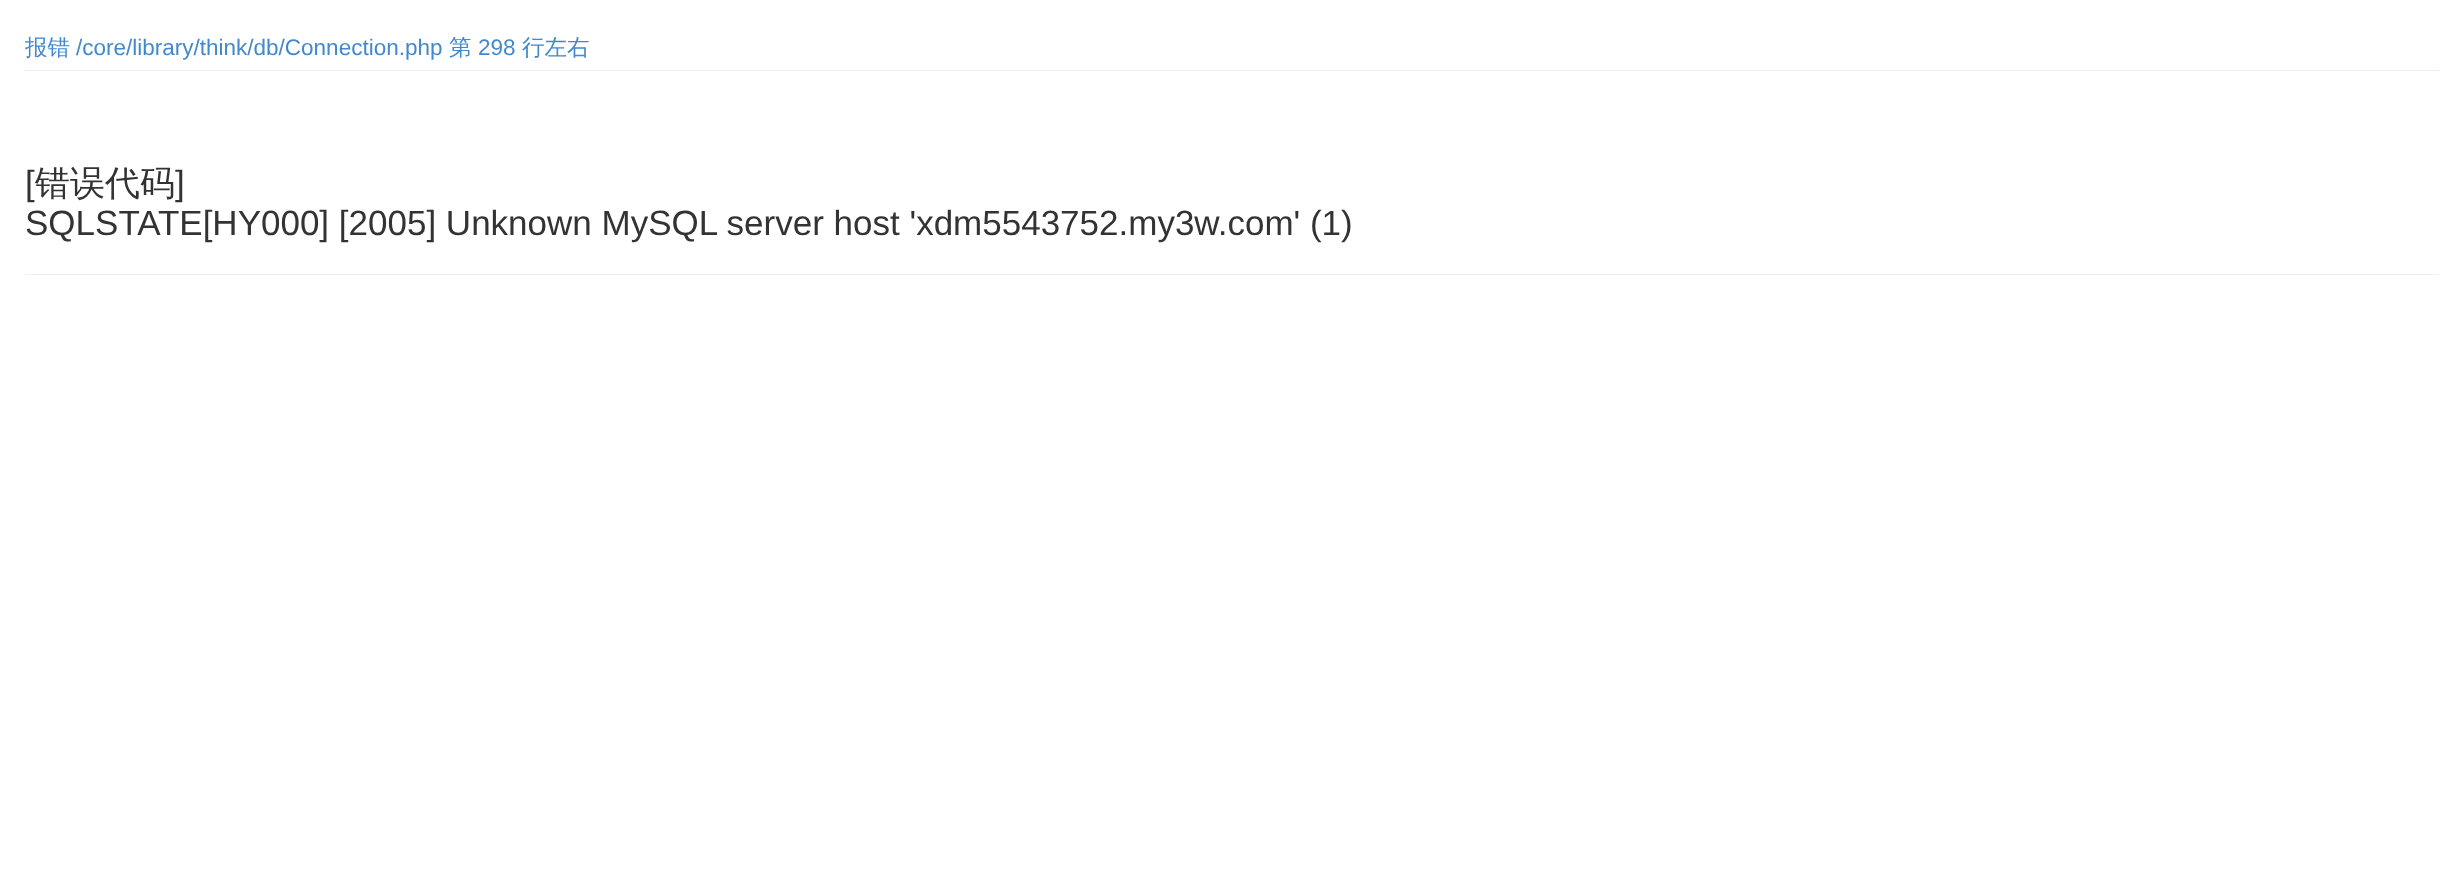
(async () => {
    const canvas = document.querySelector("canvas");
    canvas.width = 2463;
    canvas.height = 886;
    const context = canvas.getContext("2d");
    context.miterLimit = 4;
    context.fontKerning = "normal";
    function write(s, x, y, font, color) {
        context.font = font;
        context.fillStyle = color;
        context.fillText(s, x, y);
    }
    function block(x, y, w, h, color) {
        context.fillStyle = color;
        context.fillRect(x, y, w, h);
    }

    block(0, 0, 2463, 886, "rgb(255, 255, 255)");
    block(25, 70, 2414, 1, "rgb(238, 238, 238)");
    write("报错", 25, 55, "500 22.5px WenQuanYi Zen Hei", "rgb(66, 136, 206)");
    write("/core/library/think/db/Connection.php", 76, 55, "22.5px Liberation Sans", "rgb(66, 136, 206)");
    write("第", 449, 55, "500 22.5px WenQuanYi Zen Hei", "rgb(66, 136, 206)");
    write("298", 478, 55, "22.5px Liberation Sans", "rgb(66, 136, 206)");
    write("行左右", 522, 55, "500 22.5px WenQuanYi Zen Hei", "rgb(66, 136, 206)");
    write("[", 25, 195, "35px Liberation Sans", "rgb(51, 51, 51)");
    write("错误代码", 35, 195, "500 35px WenQuanYi Zen Hei", "rgb(51, 51, 51)");
    write("]", 175, 195, "35px Liberation Sans", "rgb(51, 51, 51)");
    write("SQLSTATE[HY000] [2005] Unknown MySQL server host 'xdm5543752.my3w.com' (1)", 25, 235, "35px Liberation Sans", "rgb(51, 51, 51)");
    block(25, 274, 2414, 1, "rgb(238, 238, 238)");
})();
